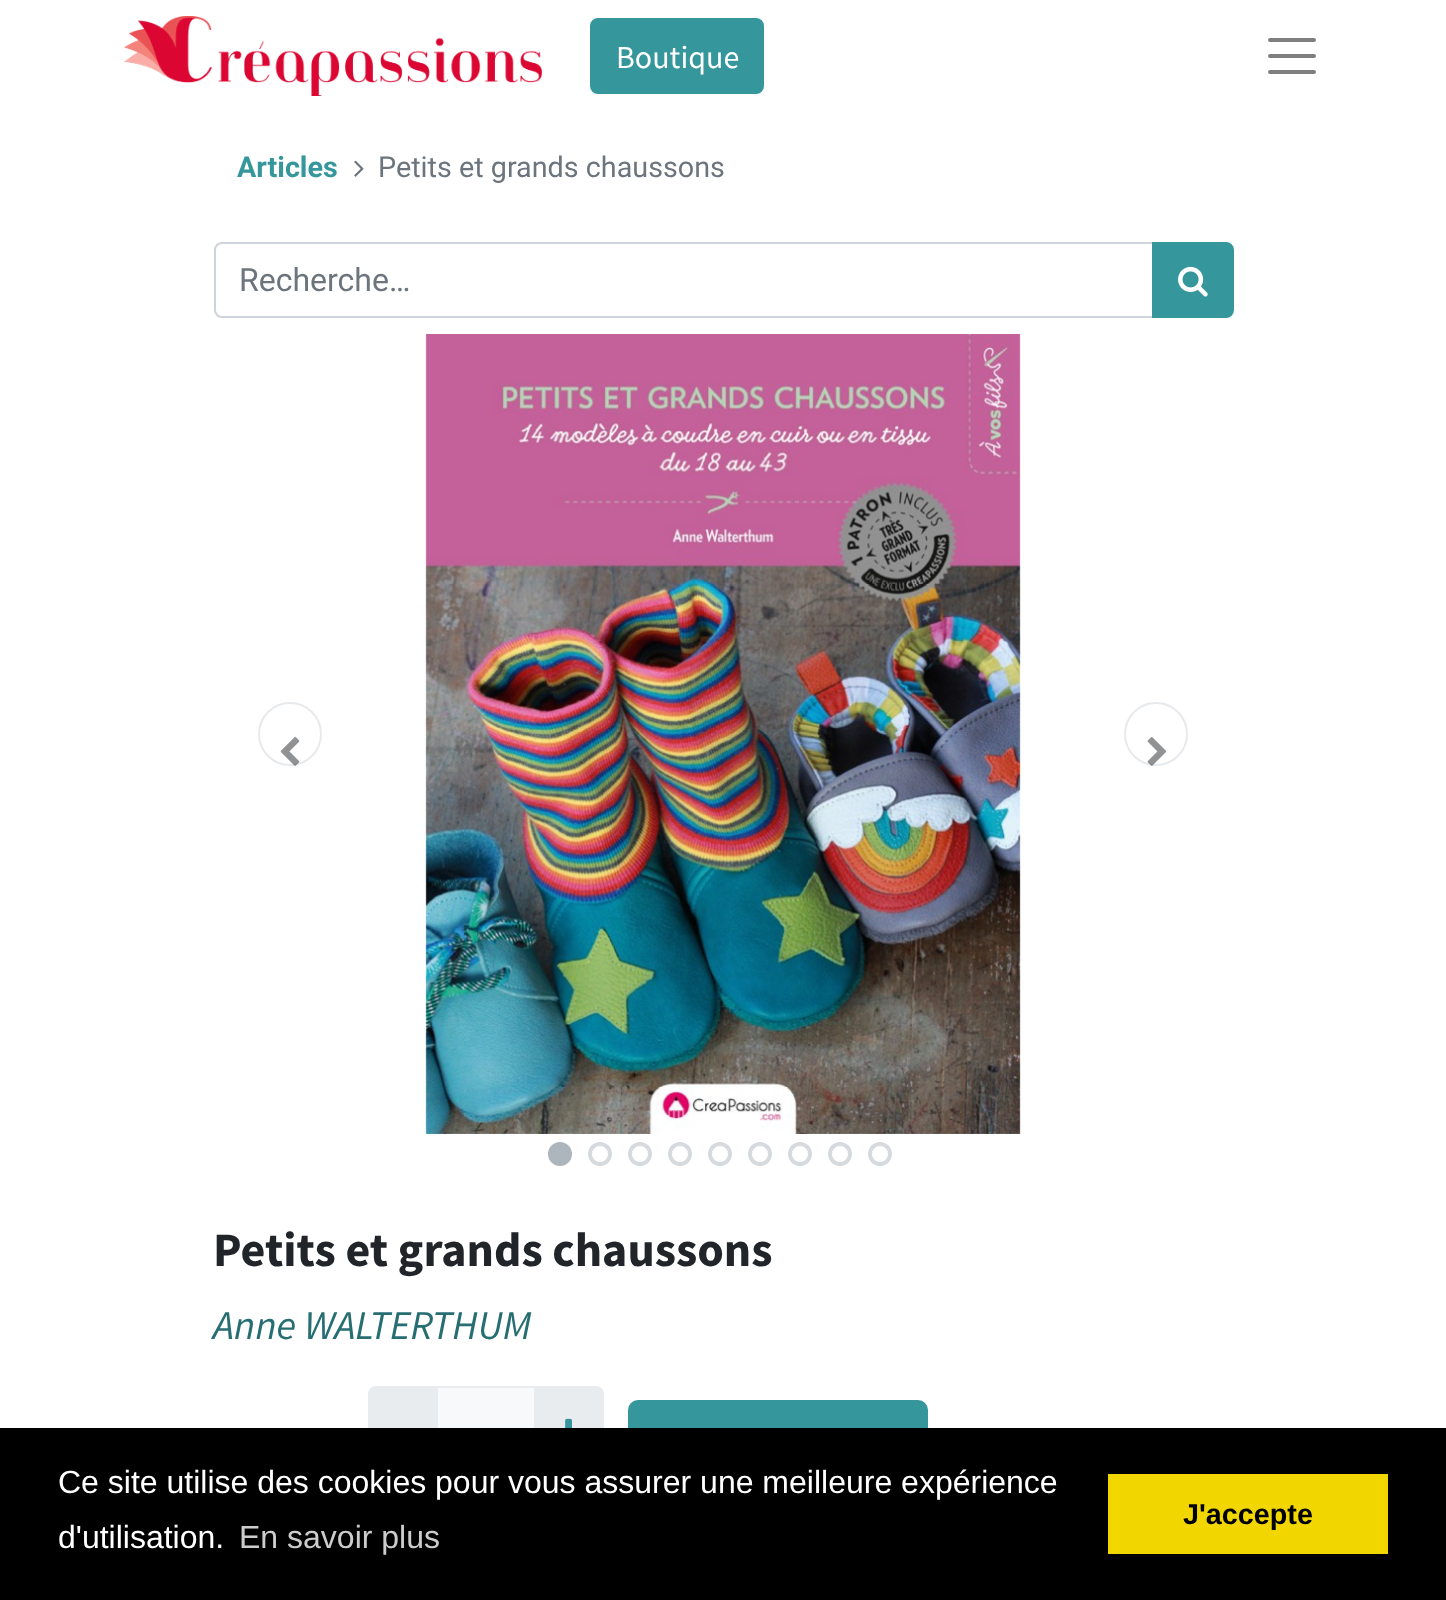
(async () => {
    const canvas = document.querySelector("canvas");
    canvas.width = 1446;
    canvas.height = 1600;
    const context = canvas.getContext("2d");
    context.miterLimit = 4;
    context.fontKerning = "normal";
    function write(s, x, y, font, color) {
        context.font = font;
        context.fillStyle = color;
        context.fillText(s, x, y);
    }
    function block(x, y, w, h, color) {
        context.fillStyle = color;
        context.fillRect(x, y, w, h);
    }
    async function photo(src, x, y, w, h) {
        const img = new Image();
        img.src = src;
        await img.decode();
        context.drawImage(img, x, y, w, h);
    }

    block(0, 0, 1446, 1600, "rgb(255, 255, 255)");
    await photo("media/1.png", 124, 16, 418, 80);
    context.fillStyle = "rgb(53, 151, 156)";
    context.beginPath();
    context.roundRect(591, 19, 172, 74, 7);
    context.fill();
    context.strokeStyle = "rgb(53, 151, 156)";
    context.lineWidth = 2;
    context.stroke();
    write("Boutique", 616, 68, "32px Source Sans Pro", "rgb(255, 255, 255)");
    context.beginPath();
    context.moveTo(1270, 40);
    context.lineTo(1314, 40);
    context.moveTo(1270, 56);
    context.lineTo(1314, 56);
    context.moveTo(1270, 72);
    context.lineTo(1314, 72);
    context.strokeStyle = "rgb(128, 128, 128)";
    context.lineWidth = 4;
    context.lineCap = "round";
    context.stroke();
    write("Articles", 237, 177, "bold 28.75px Roboto", "rgb(53, 151, 156)");
    await photo("media/2.png", 354, 160, 10, 17);
    write("Petits et grands chaussons", 378, 177, "28.75px Roboto", "rgb(108, 117, 125)");
    context.beginPath();
    context.roundRect(215, 243, 938, 74, [7, 0, 0, 7]);
    context.strokeStyle = "rgb(206, 212, 218)";
    context.lineWidth = 2;
    context.stroke();
    write("Recherche…", 239, 291, "32px Roboto", "rgb(108, 117, 125)");
    context.fillStyle = "rgb(53, 151, 156)";
    context.beginPath();
    context.roundRect(1153, 243, 80, 74, [0, 7, 7, 0]);
    context.fill();
    context.strokeStyle = "rgb(53, 151, 156)";
    context.stroke();
    await photo("media/3.png", 1178, 266, 30, 31);
    context.beginPath();
    context.arc(290, 734, 31, 0, Math.PI * 2);
    context.strokeStyle = "rgb(231, 234, 237)";
    context.stroke();
    await photo("media/4.png", 280, 737, 20, 29);
    await photo("media/5.png", 425, 334, 596, 800);
    context.beginPath();
    context.arc(1156, 734, 31, 0, Math.PI * 2);
    context.stroke();
    await photo("media/6.png", 1147, 737, 20, 29);
    context.fillStyle = "rgb(173, 181, 189)";
    context.beginPath();
    context.arc(560, 1154, 10, 0, Math.PI * 2);
    context.fill();
    context.strokeStyle = "rgb(173, 181, 189)";
    context.lineWidth = 4;
    context.stroke();
    context.beginPath();
    context.arc(600, 1154, 10, 0, Math.PI * 2);
    context.strokeStyle = "rgb(214, 218, 222)";
    context.stroke();
    context.beginPath();
    context.arc(640, 1154, 10, 0, Math.PI * 2);
    context.stroke();
    context.beginPath();
    context.arc(680, 1154, 10, 0, Math.PI * 2);
    context.stroke();
    context.beginPath();
    context.arc(720, 1154, 10, 0, Math.PI * 2);
    context.stroke();
    context.beginPath();
    context.arc(760, 1154, 10, 0, Math.PI * 2);
    context.stroke();
    context.beginPath();
    context.arc(800, 1154, 10, 0, Math.PI * 2);
    context.stroke();
    context.beginPath();
    context.arc(840, 1154, 10, 0, Math.PI * 2);
    context.stroke();
    context.beginPath();
    context.arc(880, 1154, 10, 0, Math.PI * 2);
    context.stroke();
    write("Petits et grands chaussons", 213, 1266, "bold 48px Source Sans Pro", "rgb(33, 37, 41)");
    write("Anne WALTERTHUM", 213, 1339, "italic 40.75px Source Sans Pro", "rgb(39, 110, 114)");
    block(438, 1388, 96, 40, "rgb(248, 249, 250)");
    context.strokeStyle = "rgb(233, 236, 239)";
    context.lineWidth = 2;
    context.strokeRect(437, 1387, 98, 92);
    context.fillStyle = "rgb(233, 236, 239)";
    context.beginPath();
    context.roundRect(368, 1386, 70, 94, [8, 0, 0, 8]);
    context.fill();
    context.beginPath();
    context.roundRect(534, 1386, 70, 94, [0, 8, 8, 0]);
    context.fill();
    await photo("media/7.png", 565, 1418, 7, 10);
    context.fillStyle = "rgb(53, 151, 156)";
    context.beginPath();
    context.roundRect(629, 1401, 298, 94, 9);
    context.fill();
    context.strokeStyle = "rgb(53, 151, 156)";
    context.stroke();
    block(0, 1428, 1446, 172, "rgb(0, 0, 0)");
    write("Ce site utilise des cookies pour vous assurer une meilleure expérience", 58, 1493, "32px Liberation Sans", "rgb(255, 255, 255)");
    write("d'utilisation.", 58, 1548, "32px Liberation Sans", "rgb(255, 255, 255)");
    write("En savoir plus", 239, 1548, "32px Liberation Sans", "rgb(204, 204, 204)");
    block(1108, 1474, 280, 80, "rgb(241, 214, 0)");
    write("J'accepte", 1183, 1524, "bold 28.75px Liberation Sans", "rgb(0, 0, 0)");
})();
